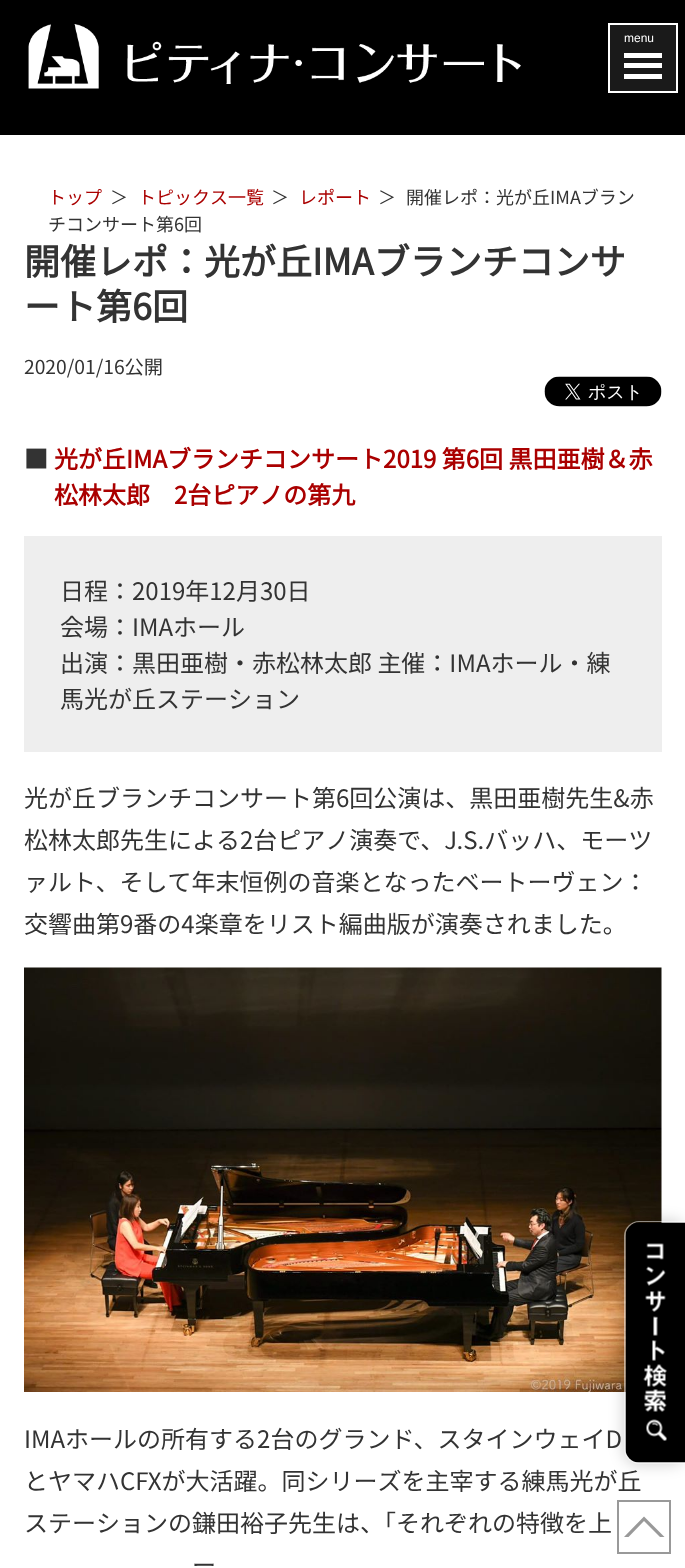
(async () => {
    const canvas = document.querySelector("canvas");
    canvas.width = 685;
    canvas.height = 1568;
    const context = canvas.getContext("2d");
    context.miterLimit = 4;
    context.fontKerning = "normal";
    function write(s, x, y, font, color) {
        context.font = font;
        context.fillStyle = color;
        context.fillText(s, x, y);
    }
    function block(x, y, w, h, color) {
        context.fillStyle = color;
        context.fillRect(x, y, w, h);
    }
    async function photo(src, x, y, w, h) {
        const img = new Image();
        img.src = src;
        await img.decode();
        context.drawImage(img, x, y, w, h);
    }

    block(0, 0, 685, 1568, "rgb(255, 255, 255)");
    block(0, 0, 685, 135, "rgb(0, 0, 0)");
    await photo("media/1.png", 28, 24, 493, 65);
    context.fillStyle = "rgb(26, 26, 26)";
    context.beginPath();
    context.rect(609, 24, 68, 68);
    context.fill();
    context.strokeStyle = "rgb(255, 255, 255)";
    context.lineWidth = 2;
    context.stroke();
    write("menu", 624, 42, "12px Liberation Sans", "rgb(255, 255, 255)");
    block(624, 63, 38, 5, "rgb(255, 255, 255)");
    block(624, 53, 38, 5, "rgb(255, 255, 255)");
    block(624, 74, 38, 5, "rgb(255, 255, 255)");
    write("トップ", 48, 204, "100 18px Noto Sans JP", "rgb(170, 0, 0)");
    write("＞", 110, 204, "100 18px Noto Sans JP", "rgb(51, 51, 51)");
    write("トピックス一覧", 138, 204, "100 18px Noto Sans JP", "rgb(170, 0, 0)");
    write("＞", 271, 204, "100 18px Noto Sans JP", "rgb(51, 51, 51)");
    write("レポート", 299, 204, "100 18px Noto Sans JP", "rgb(170, 0, 0)");
    write("＞", 378, 204, "100 18px Noto Sans JP", "rgb(51, 51, 51)");
    write("開催レポ：光が丘IMAブラン", 406, 204, "100 18px Noto Sans JP", "rgb(51, 51, 51)");
    write("チコンサート第6回", 48, 231, "100 18px Noto Sans JP", "rgb(51, 51, 51)");
    write("開催レポ：光が丘IMAブランチコンサ", 24, 275, "bold 36px Noto Sans JP", "rgb(51, 51, 51)");
    write("ート第6回", 24, 320, "bold 36px Noto Sans JP", "rgb(51, 51, 51)");
    write("2020/01/16公開", 24, 374, "100 19.25px Noto Sans JP", "rgb(51, 51, 51)");
    await photo("media/2.png", 544, 376, 118, 31);
    write("■", 24, 468, "bold 24px Noto Sans JP", "rgb(51, 51, 51)");
    write("光が丘IMAブランチコンサート2019 第6回 黒田亜樹＆赤", 54, 468, "bold 24px Noto Sans JP", "rgb(170, 0, 0)");
    write("松林太郎　2台ピアノの第九", 54, 504, "bold 24px Noto Sans JP", "rgb(170, 0, 0)");
    block(24, 536, 638, 216, "rgb(238, 238, 238)");
    write("日程：2019年12月30日", 60, 600, "100 24px Noto Sans JP", "rgb(51, 51, 51)");
    write("会場：IMAホール", 60, 636, "100 24px Noto Sans JP", "rgb(51, 51, 51)");
    write("出演：黒田亜樹・赤松林太郎 主催：IMAホール・練", 60, 672, "100 24px Noto Sans JP", "rgb(51, 51, 51)");
    write("馬光が丘ステーション", 60, 708, "100 24px Noto Sans JP", "rgb(51, 51, 51)");
    write("光が丘ブランチコンサート第6回公演は、黒田亜樹先生&赤", 24, 807, "100 24px Noto Sans JP", "rgb(51, 51, 51)");
    write("松林太郎先生による2台ピアノ演奏で、J.S.バッハ、モーツ", 24, 849, "100 24px Noto Sans JP", "rgb(51, 51, 51)");
    write("ァルト、そして年末恒例の音楽となったベートーヴェン：", 24, 891, "100 24px Noto Sans JP", "rgb(51, 51, 51)");
    write("交響曲第9番の4楽章をリスト編曲版が演奏されました。", 24, 933, "100 24px Noto Sans JP", "rgb(51, 51, 51)");
    await photo("media/3.png", 24, 967, 638, 425);
    write("IMAホールの所有する2台のグランド、スタインウェイD", 24, 1448, "100 24px Noto Sans JP", "rgb(51, 51, 51)");
    write("とヤマハCFXが大活躍。同シリーズを主宰する練馬光が丘", 24, 1490, "100 24px Noto Sans JP", "rgb(51, 51, 51)");
    write("ステーションの鎌田裕子先生は、「それぞれの特徴を上", 24, 1532, "100 24px Noto Sans JP", "rgb(51, 51, 51)");
    write("ー", 192, 1574, "100 24px Noto Sans JP", "rgb(51, 51, 51)");
    context.fillStyle = "rgba(0, 0, 0, 0.2)";
    context.filter = "blur(7.5px)";
    context.beginPath();
    context.roundRect(624, 1221, 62, 243, 15);
    context.fill();
    context.filter = "none";
    context.fillStyle = "rgba(255, 255, 255, 0.5)";
    context.beginPath();
    context.moveTo(639, 1221);
    context.lineTo(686, 1221);
    context.lineTo(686, 1464);
    context.lineTo(639, 1464);
    context.bezierCurveTo(631, 1464, 624, 1457, 624, 1449);
    context.lineTo(624, 1236);
    context.bezierCurveTo(624, 1228, 631, 1221, 639, 1221);
    context.closePath();
    context.moveTo(639, 1222);
    context.lineTo(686, 1222);
    context.lineTo(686, 1462);
    context.lineTo(639, 1462);
    context.bezierCurveTo(632, 1462, 626, 1456, 626, 1449);
    context.lineTo(626, 1236);
    context.bezierCurveTo(626, 1229, 632, 1222, 639, 1222);
    context.closePath();
    context.fill("evenodd");
    await photo("media/4.png", 625, 1222, 60, 241);
    block(619, 1519, 4, 14, "rgba(255, 255, 255, 0.9)");
    context.strokeStyle = "rgb(153, 153, 153)";
    context.strokeRect(618, 1501, 52, 52);
    context.fillStyle = "rgb(153, 153, 153)";
    context.beginPath();
    context.moveTo(624, 1537);
    context.lineTo(644, 1516.5);
    context.lineTo(644, 1521);
    context.lineTo(628.5, 1537);
    context.closePath();
    context.moveTo(644, 1516.5);
    context.lineTo(664.5, 1537);
    context.lineTo(660, 1537);
    context.lineTo(644, 1521);
    context.closePath();
    context.fill();
})();
